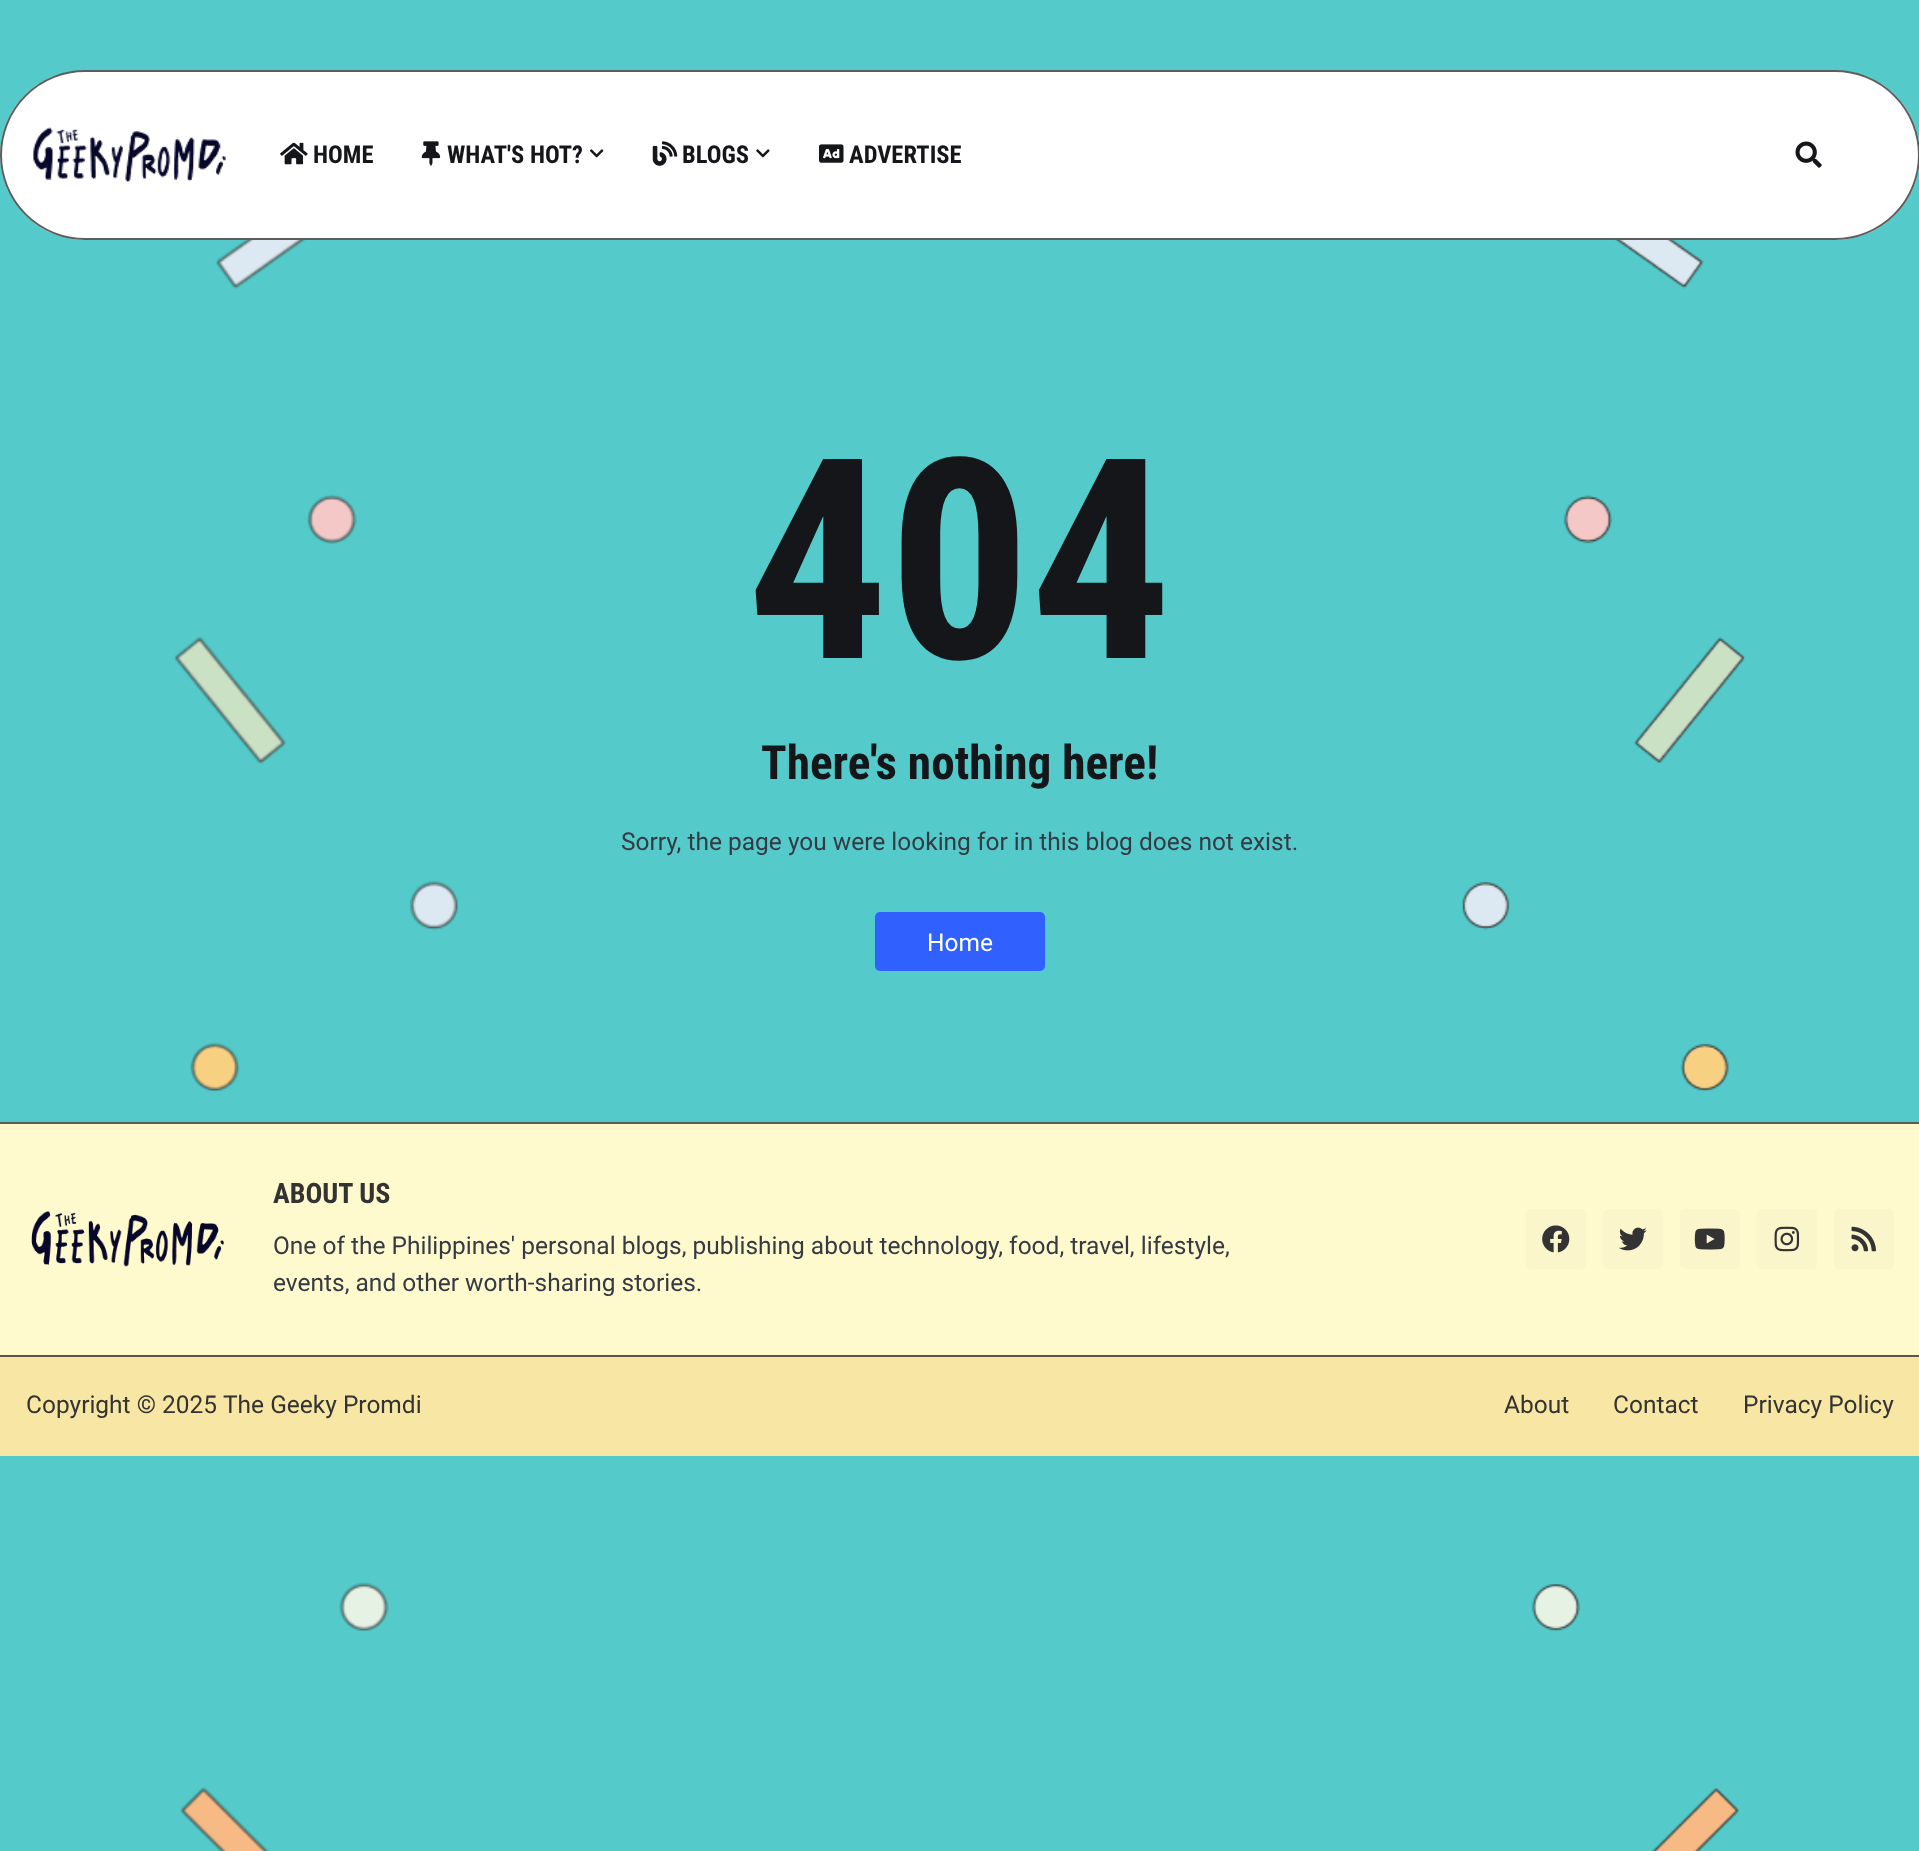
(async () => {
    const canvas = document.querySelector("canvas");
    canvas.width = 1919;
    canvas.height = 1851;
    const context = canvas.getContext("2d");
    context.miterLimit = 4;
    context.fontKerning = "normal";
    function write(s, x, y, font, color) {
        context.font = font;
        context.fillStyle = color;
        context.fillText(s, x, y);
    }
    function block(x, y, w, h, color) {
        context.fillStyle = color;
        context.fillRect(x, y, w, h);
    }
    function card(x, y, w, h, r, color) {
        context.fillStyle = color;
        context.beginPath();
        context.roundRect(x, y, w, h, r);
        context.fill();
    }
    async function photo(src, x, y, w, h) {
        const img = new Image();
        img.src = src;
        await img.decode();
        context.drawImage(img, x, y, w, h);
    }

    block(0, 0, 1919, 1851, "rgb(84, 203, 202)");
    card(0, 70, 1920, 170, 85, "rgb(255, 255, 255)");
    context.beginPath();
    context.roundRect(1, 71, 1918, 168, 84);
    context.strokeStyle = "rgba(39, 39, 39, 0.75)";
    context.lineWidth = 2;
    context.stroke();
    await photo("media/1.png", 33, 127, 193, 55);
    await photo("media/2.png", 280, 142, 28, 23);
    write("HOME", 313, 163, "bold 24.5px Roboto Condensed", "rgb(21, 22, 26)");
    await photo("media/3.png", 421, 141, 20, 25);
    write("WHAT'S HOT?", 447, 163, "bold 24.5px Roboto Condensed", "rgb(21, 22, 26)");
    await photo("media/4.png", 590, 149, 14, 9);
    await photo("media/5.png", 652, 141, 26, 25);
    write("BLOGS", 682, 163, "bold 24.5px Roboto Condensed", "rgb(21, 22, 26)");
    await photo("media/6.png", 756, 149, 14, 9);
    await photo("media/7.png", 819, 144, 25, 19);
    write("ADVERTISE", 849, 163, "bold 24.5px Roboto Condensed", "rgb(21, 22, 26)");
    await photo("media/8.png", 1795, 141, 27, 27);
    await photo("media/9.png", 174, 240, 284, 1611);
    await photo("media/10.png", 1462, 240, 284, 1611);
    write("404", 747, 658, "bold 280px Roboto Condensed", "rgb(21, 22, 26)");
    write("There's nothing here!", 761, 779, "bold 47.25px Roboto Condensed", "rgb(21, 22, 26)");
    write("Sorry, the page you were looking for in this blog does not exist.", 621, 850, "24.5px Roboto", "rgb(53, 58, 68)");
    card(875, 912, 170, 59, 5, "rgb(48, 97, 255)");
    write("Home", 927, 951, "24.5px Roboto", "rgb(255, 255, 255)");
    block(0, 1124, 1919, 231, "rgb(255, 250, 205)");
    block(0, 1122, 1919, 2, "rgb(93, 92, 81)");
    await photo("media/11.png", 31, 1211, 194, 56);
    write("ABOUT US", 273, 1203, "bold 28px Roboto Condensed", "rgb(51, 51, 51)");
    write("One of the Philippines' personal blogs, publishing about technology, food, travel, lifestyle,", 273, 1254, "24.5px Roboto", "rgb(53, 58, 68)");
    write("events, and other worth-sharing stories.", 273, 1291, "24.5px Roboto", "rgb(53, 58, 68)");
    card(1526, 1209, 60, 60, 5, "rgb(250, 245, 203)");
    await photo("media/12.png", 1542, 1225, 28, 28);
    card(1603, 1209, 60, 60, 5, "rgb(250, 245, 203)");
    await photo("media/13.png", 1619, 1227, 28, 24);
    card(1680, 1209, 60, 60, 5, "rgb(250, 245, 203)");
    await photo("media/14.png", 1694, 1228, 31, 22);
    card(1757, 1209, 60, 60, 5, "rgb(250, 245, 203)");
    await photo("media/15.png", 1774, 1226, 26, 26);
    card(1834, 1209, 60, 60, 5, "rgb(250, 245, 203)");
    await photo("media/16.png", 1851, 1226, 25, 26);
    block(0, 1357, 1919, 99, "rgb(247, 230, 164)");
    block(0, 1355, 1919, 2, "rgb(91, 87, 70)");
    write("Copyright © 2025", 26, 1413, "24.5px Roboto", "rgb(51, 51, 51)");
    write("The Geeky Promdi", 223, 1413, "24.5px Roboto", "rgb(51, 51, 51)");
    write("About", 1504, 1413, "24.5px Roboto", "rgb(51, 51, 51)");
    write("Contact", 1613, 1413, "24.5px Roboto", "rgb(51, 51, 51)");
    write("Privacy Policy", 1743, 1413, "24.5px Roboto", "rgb(51, 51, 51)");
})();
